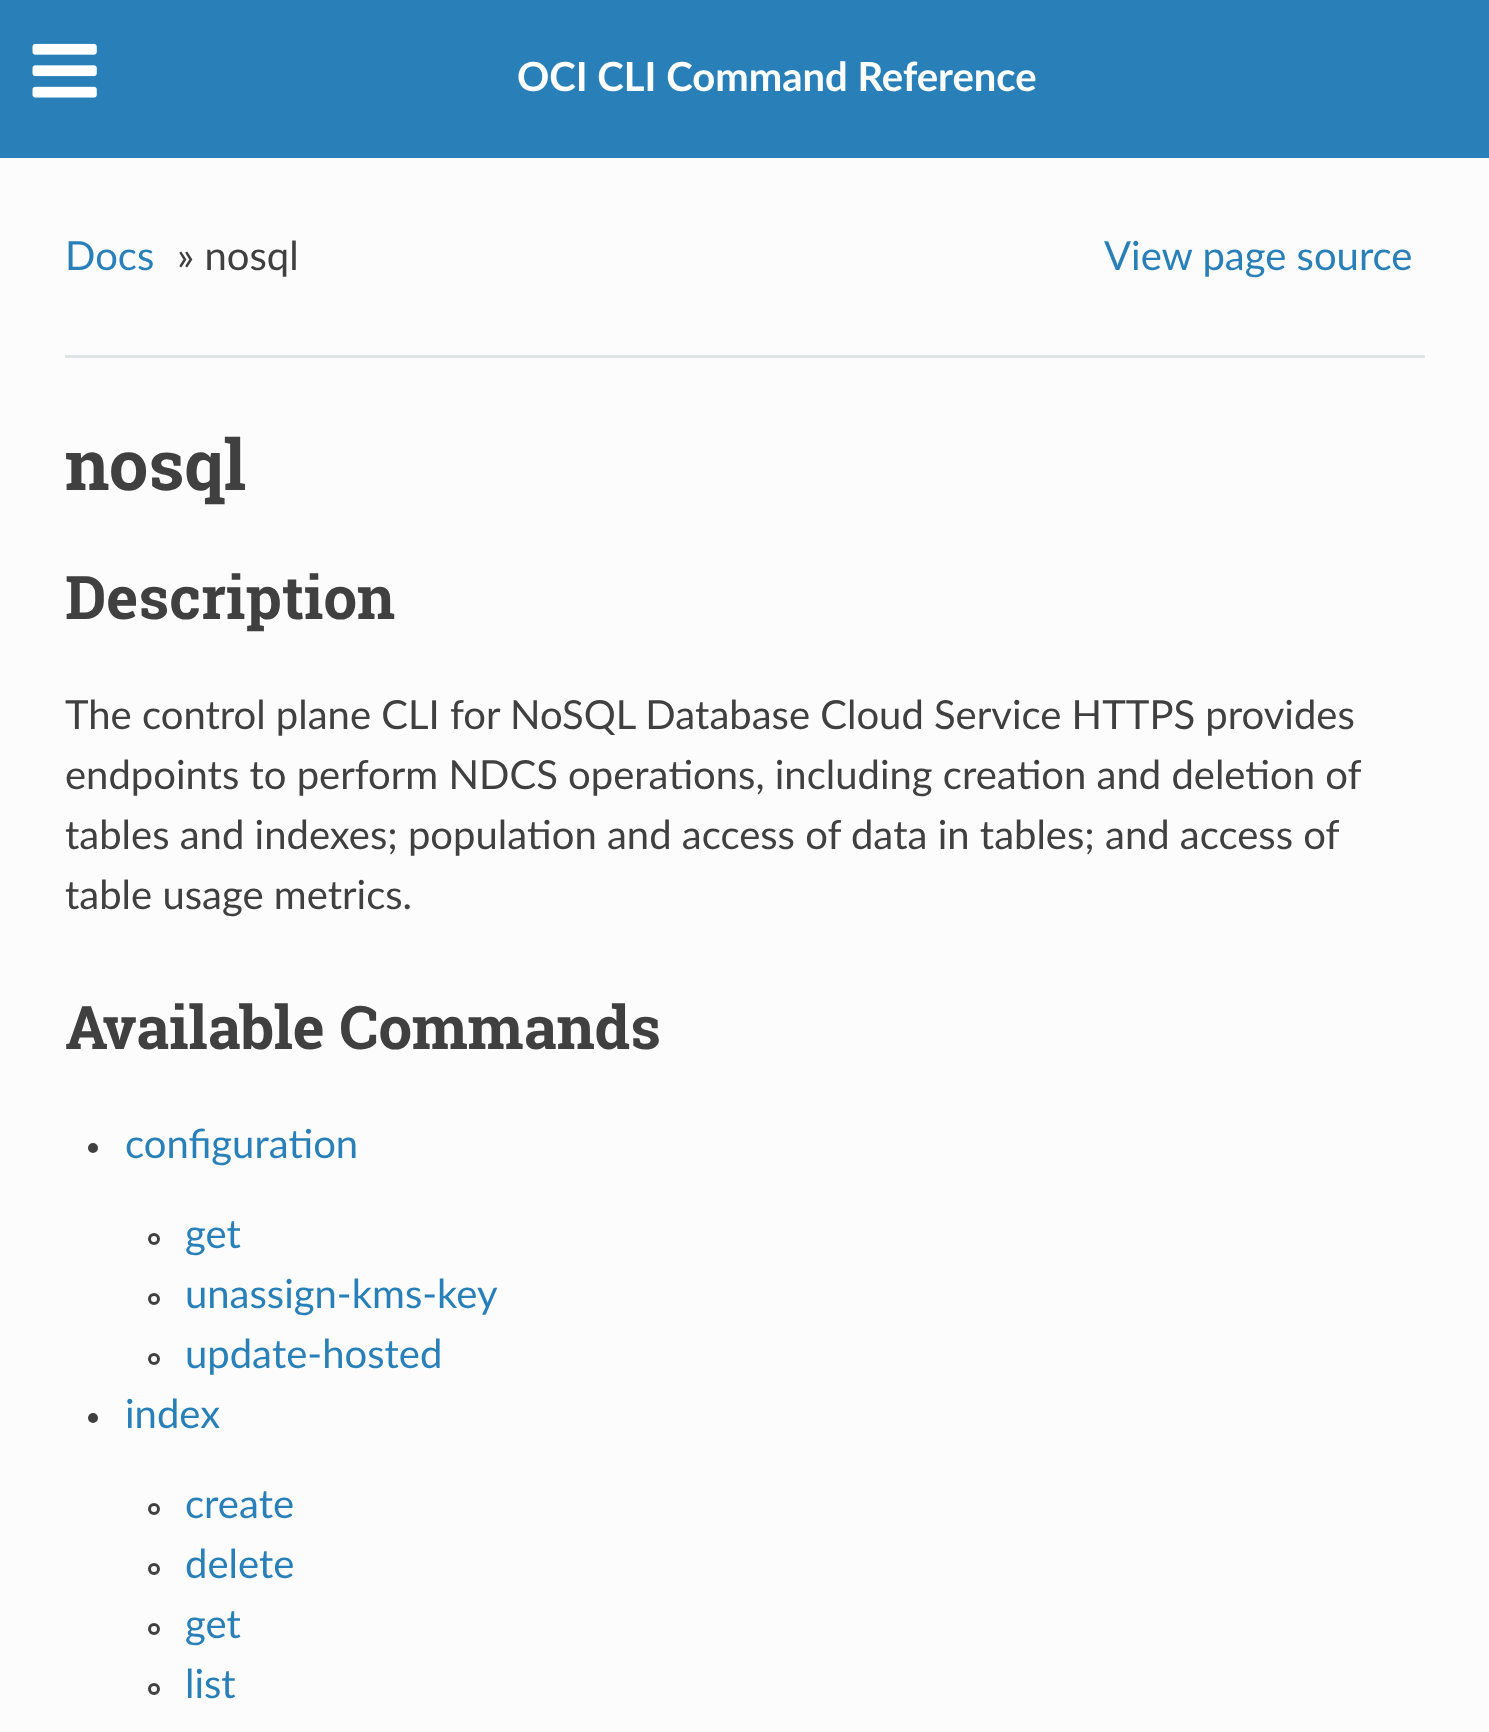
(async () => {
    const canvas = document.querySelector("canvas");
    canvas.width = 1489;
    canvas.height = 1732;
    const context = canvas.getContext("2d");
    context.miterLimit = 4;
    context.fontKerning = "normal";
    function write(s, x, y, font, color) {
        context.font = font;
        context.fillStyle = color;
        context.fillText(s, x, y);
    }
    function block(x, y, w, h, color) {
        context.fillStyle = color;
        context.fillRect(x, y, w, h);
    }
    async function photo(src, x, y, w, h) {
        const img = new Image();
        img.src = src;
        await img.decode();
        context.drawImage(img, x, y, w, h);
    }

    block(0, 0, 1489, 1732, "rgb(252, 252, 252)");
    block(0, 0, 1489, 158, "rgb(41, 128, 185)");
    await photo("media/1.png", 32, 43, 65, 55);
    write("OCI CLI Command Reference", 517, 91, "bold 40px Lato", "rgb(255, 255, 255)");
    write("Docs", 65, 270, "40px Lato", "rgb(41, 128, 185)");
    write("» nosql", 177, 270, "40px Lato", "rgb(64, 64, 64)");
    write("View page source", 1104, 270, "40px Lato", "rgb(41, 128, 185)");
    block(65, 355, 1360, 3, "rgb(225, 228, 229)");
    write("nosql", 65, 490, "bold 70px Roboto Slab", "rgb(64, 64, 64)");
    write("Description", 65, 619, "bold 60px Roboto Slab", "rgb(64, 64, 64)");
    write("The control plane CLI for NoSQL Database Cloud Service HTTPS provides", 65, 729, "40px Lato", "rgb(64, 64, 64)");
    write("endpoints to perform NDCS operations, including creation and deletion of", 65, 789, "40px Lato", "rgb(64, 64, 64)");
    write("tables and indexes; population and access of data in tables; and access of", 65, 849, "40px Lato", "rgb(64, 64, 64)");
    write("table usage metrics.", 65, 909, "40px Lato", "rgb(64, 64, 64)");
    write("Available Commands", 65, 1049, "bold 60px Roboto Slab", "rgb(64, 64, 64)");
    context.beginPath();
    context.arc(93, 1148, 5, 0, Math.PI * 2);
    context.fill();
    write("configuration", 125, 1158, "40px Lato", "rgb(41, 128, 185)");
    context.beginPath();
    context.arc(154, 1239, 4.5, 0, Math.PI * 2);
    context.strokeStyle = "rgb(64, 64, 64)";
    context.lineWidth = 3;
    context.stroke();
    write("get", 185, 1248, "40px Lato", "rgb(41, 128, 185)");
    context.beginPath();
    context.arc(154, 1299, 4.5, 0, Math.PI * 2);
    context.stroke();
    write("unassign-kms-key", 185, 1308, "40px Lato", "rgb(41, 128, 185)");
    context.beginPath();
    context.arc(154, 1359, 4.5, 0, Math.PI * 2);
    context.stroke();
    write("update-hosted", 185, 1368, "40px Lato", "rgb(41, 128, 185)");
    context.fillStyle = "rgb(64, 64, 64)";
    context.beginPath();
    context.arc(93, 1418, 5, 0, Math.PI * 2);
    context.fill();
    write("index", 125, 1428, "40px Lato", "rgb(41, 128, 185)");
    context.beginPath();
    context.arc(154, 1509, 4.5, 0, Math.PI * 2);
    context.stroke();
    write("create", 185, 1518, "40px Lato", "rgb(41, 128, 185)");
    context.beginPath();
    context.arc(154, 1569, 4.5, 0, Math.PI * 2);
    context.stroke();
    write("delete", 185, 1578, "40px Lato", "rgb(41, 128, 185)");
    context.beginPath();
    context.arc(154, 1629, 4.5, 0, Math.PI * 2);
    context.stroke();
    write("get", 185, 1638, "40px Lato", "rgb(41, 128, 185)");
    context.beginPath();
    context.arc(154, 1689, 4.5, 0, Math.PI * 2);
    context.stroke();
    write("list", 185, 1698, "40px Lato", "rgb(41, 128, 185)");
})();
